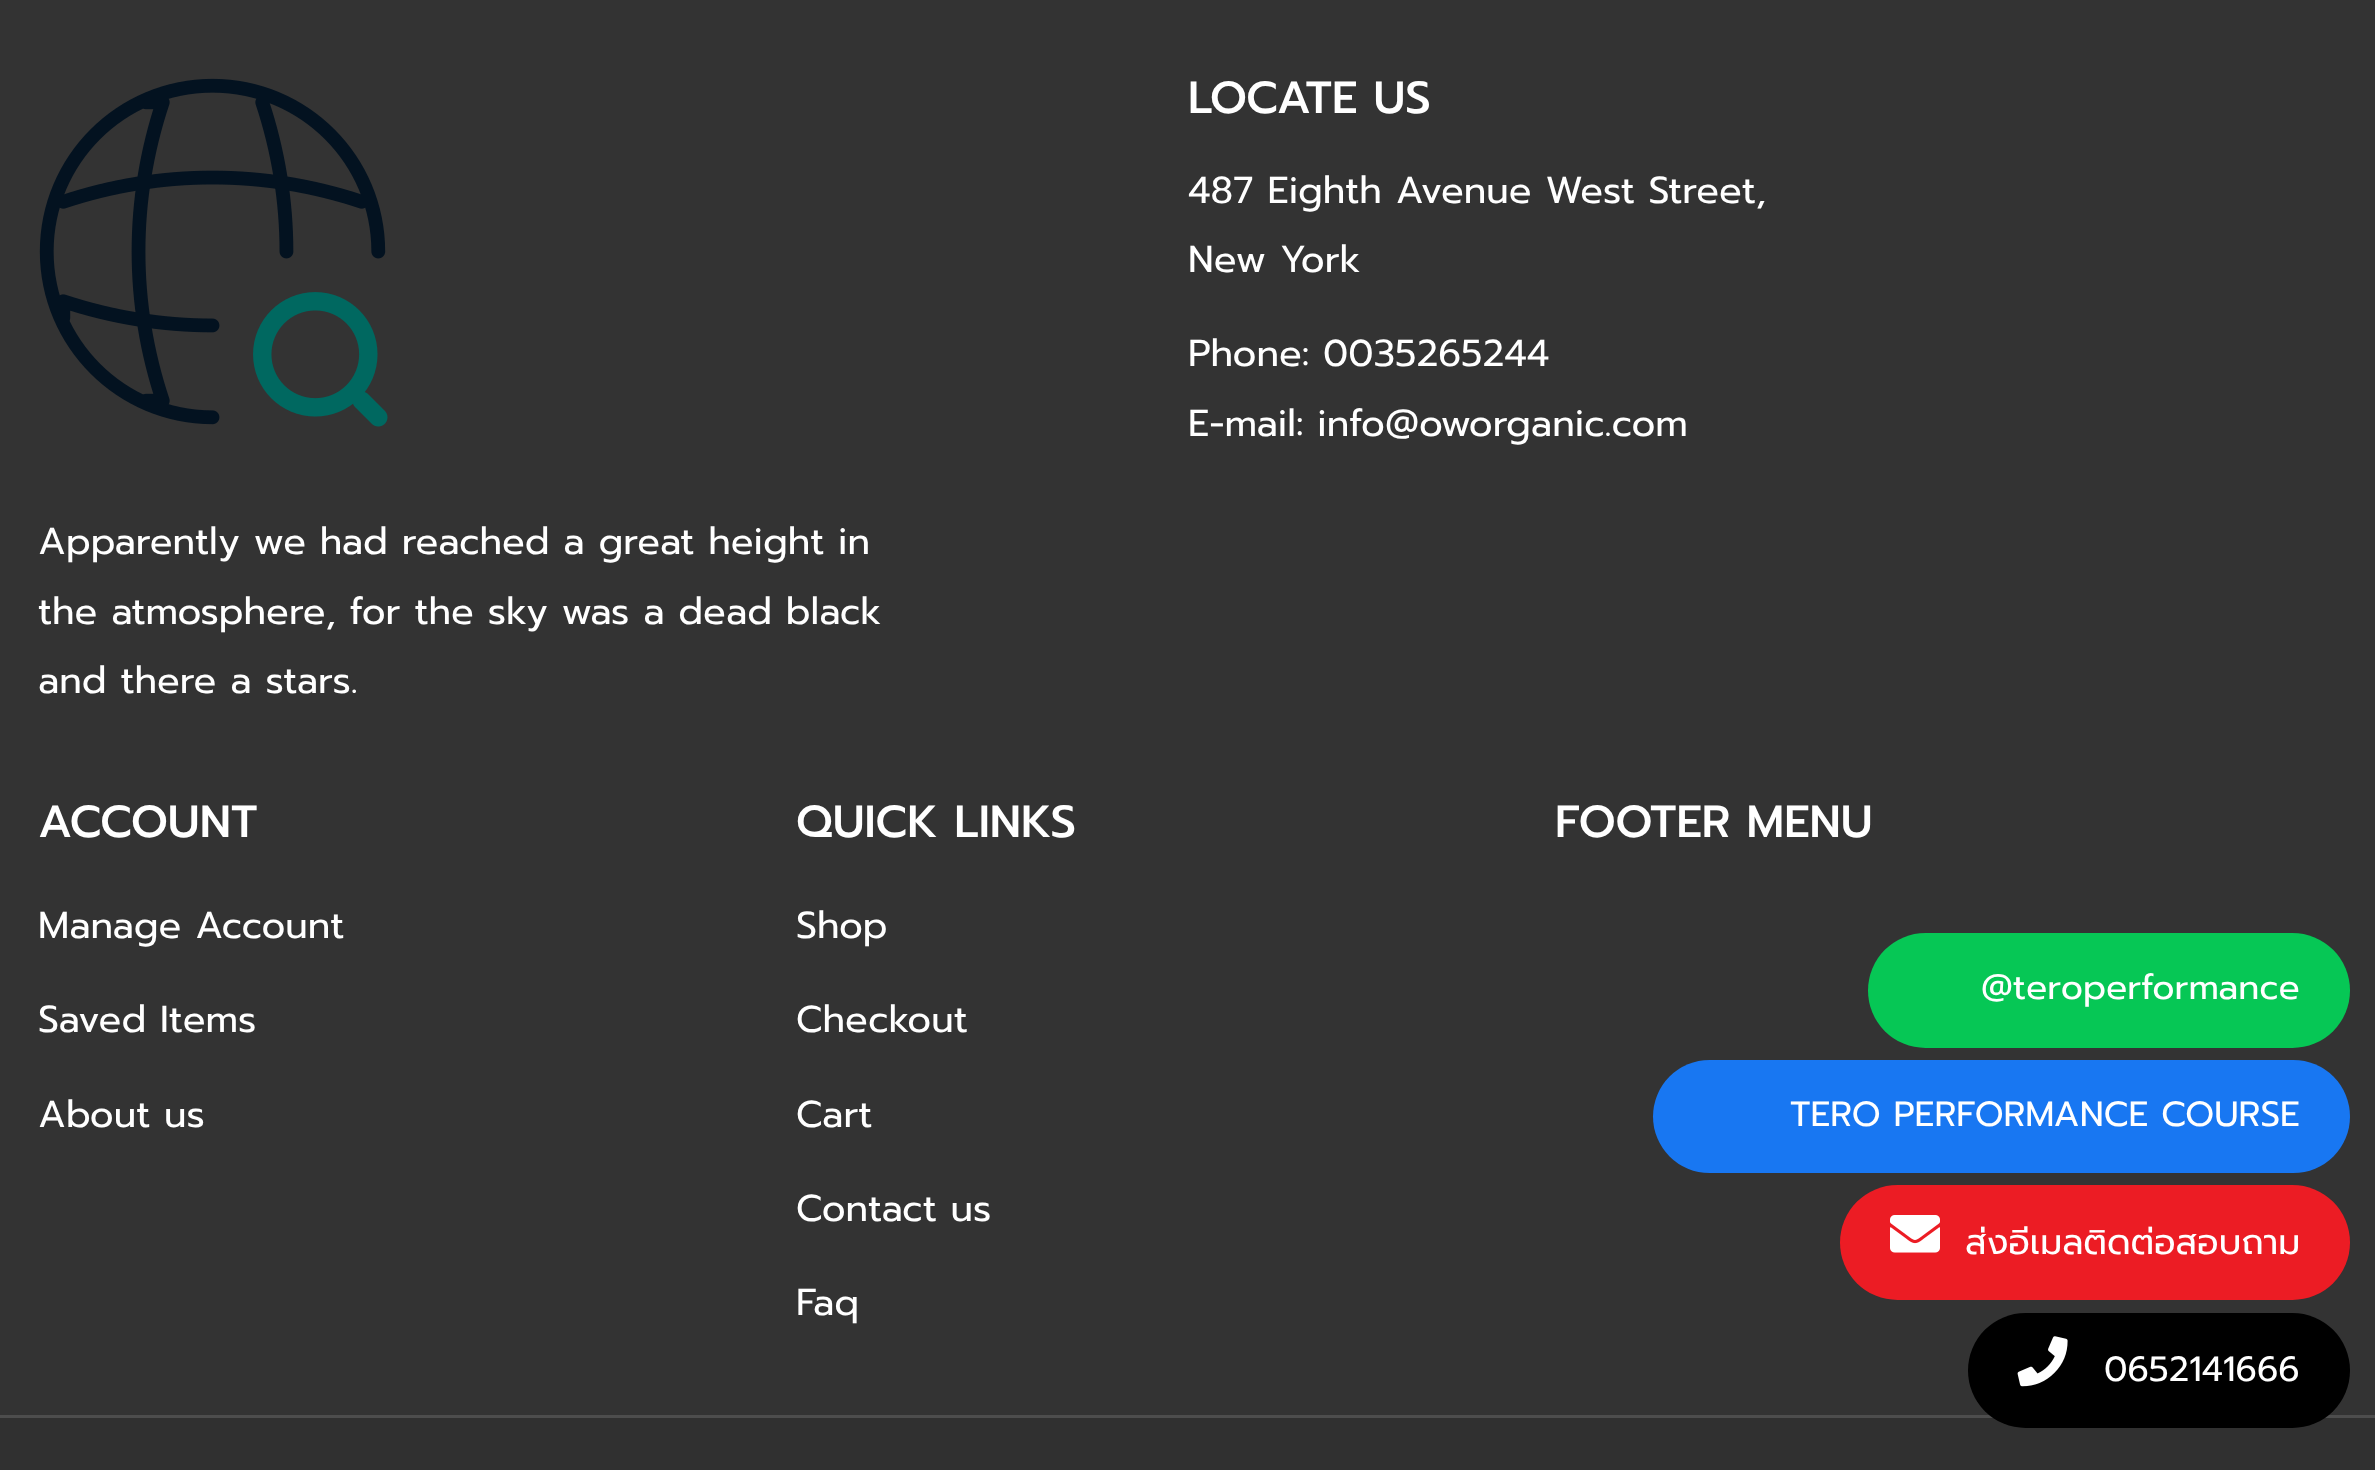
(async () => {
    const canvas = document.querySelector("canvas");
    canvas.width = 2375;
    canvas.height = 1470;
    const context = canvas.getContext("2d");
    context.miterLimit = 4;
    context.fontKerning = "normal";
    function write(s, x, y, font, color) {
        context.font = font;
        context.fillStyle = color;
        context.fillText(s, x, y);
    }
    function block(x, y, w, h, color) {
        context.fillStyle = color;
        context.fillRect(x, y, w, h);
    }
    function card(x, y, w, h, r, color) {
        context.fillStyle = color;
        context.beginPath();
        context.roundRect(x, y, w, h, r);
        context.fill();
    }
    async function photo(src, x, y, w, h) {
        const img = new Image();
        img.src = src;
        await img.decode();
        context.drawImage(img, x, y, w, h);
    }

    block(0, 0, 2375, 1470, "rgb(51, 51, 51)");
    write("LOCATE US", 1188, 113, "500 45px Prompt", "rgb(255, 255, 255)");
    write("487 Eighth Avenue West Street,", 1188, 203, "37.5px Prompt", "rgb(255, 255, 255)");
    write("New York", 1188, 272, "37.5px Prompt", "rgb(255, 255, 255)");
    write("Phone: 0035265244", 1188, 366, "37.5px Prompt", "rgb(255, 255, 255)");
    write("E-mail: info@oworganic.com", 1188, 436, "37.5px Prompt", "rgb(255, 255, 255)");
    await photo("media/1.png", 39, 78, 349, 349);
    write("Apparently we had reached a great height in", 38, 554, "37.5px Prompt", "rgb(255, 255, 255)");
    write("the atmosphere, for the sky was a dead black", 38, 624, "37.5px Prompt", "rgb(255, 255, 255)");
    write("and there a stars.", 38, 693, "37.5px Prompt", "rgb(255, 255, 255)");
    write("ACCOUNT", 38, 837, "500 45px Prompt", "rgb(255, 255, 255)");
    write("Manage Account", 38, 938, "37.5px Prompt", "rgb(255, 255, 255)");
    write("Saved Items", 38, 1032, "37.5px Prompt", "rgb(255, 255, 255)");
    write("About us", 38, 1127, "37.5px Prompt", "rgb(255, 255, 255)");
    write("QUICK LINKS", 796, 837, "500 45px Prompt", "rgb(255, 255, 255)");
    write("Shop", 796, 938, "37.5px Prompt", "rgb(255, 255, 255)");
    write("Checkout", 796, 1032, "37.5px Prompt", "rgb(255, 255, 255)");
    write("Cart", 796, 1127, "37.5px Prompt", "rgb(255, 255, 255)");
    write("Contact us", 796, 1221, "37.5px Prompt", "rgb(255, 255, 255)");
    write("Faq", 796, 1315, "37.5px Prompt", "rgb(255, 255, 255)");
    write("FOOTER MENU", 1555, 837, "500 45px Prompt", "rgb(255, 255, 255)");
    block(0, 1418, 2375, 52, "rgb(48, 48, 48)");
    block(0, 1415, 2375, 3, "rgb(77, 77, 77)");
    card(1868, 933, 482, 115, 57.5, "rgb(6, 199, 85)");
    write("@teroperformance", 1981, 999, "35px Prompt", "rgb(255, 255, 255)");
    card(1653, 1060, 697, 113, 56.5, "rgb(24, 119, 242)");
    write("TERO PERFORMANCE COURSE", 1790, 1126, "35px Prompt", "rgb(255, 255, 255)");
    card(1840, 1185, 510, 115, 57.5, "rgb(236, 28, 36)");
    await photo("media/2.png", 1890, 1215, 50, 38);
    write("ส่งอีเมลติดต่อสอบถาม", 1965, 1254, "35px Prompt", "rgb(255, 255, 255)");
    card(1968, 1313, 382, 115, 57.5, "rgb(0, 0, 0)");
    await photo("media/3.png", 2017, 1336, 51, 51);
    write("0652141666", 2104, 1381, "35px Prompt", "rgb(255, 255, 255)");
})();
